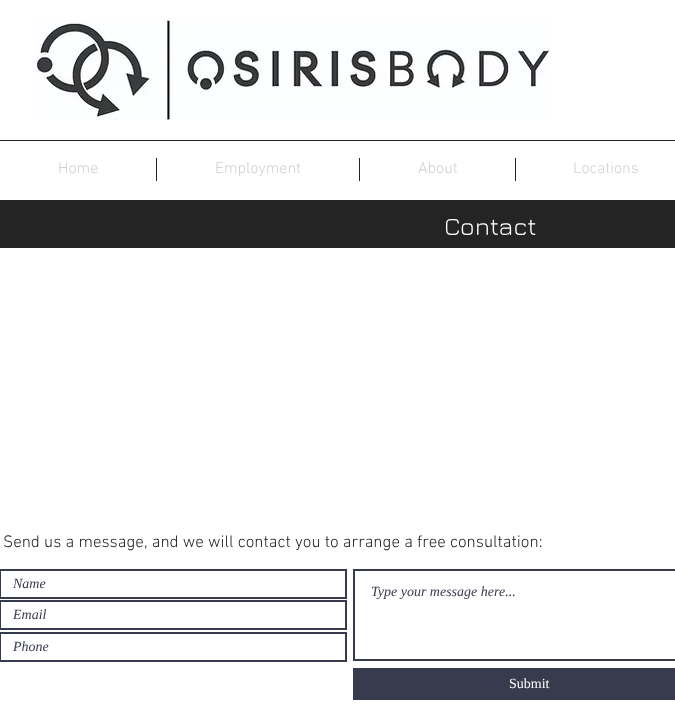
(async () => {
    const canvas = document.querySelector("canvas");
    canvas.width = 675;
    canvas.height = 705;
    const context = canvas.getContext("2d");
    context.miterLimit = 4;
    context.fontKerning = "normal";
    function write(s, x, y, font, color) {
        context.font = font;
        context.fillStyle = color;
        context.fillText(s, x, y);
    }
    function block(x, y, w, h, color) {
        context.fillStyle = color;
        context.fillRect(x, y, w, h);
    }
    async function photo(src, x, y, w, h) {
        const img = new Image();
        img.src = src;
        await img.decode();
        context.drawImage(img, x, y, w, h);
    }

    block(0, 0, 675, 705, "rgb(255, 255, 255)");
    await photo("media/1.png", 35, 20, 516, 100);
    block(0, 140, 675, 1, "rgb(36, 36, 36)");
    write("Home", 58, 173, "300 16px 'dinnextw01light'", "rgb(209, 209, 209)");
    block(156, 158, 1, 23, "rgb(36, 36, 36)");
    write("Employment", 215, 173, "300 16px 'dinnextw01light'", "rgb(209, 209, 209)");
    block(359, 158, 1, 23, "rgb(36, 36, 36)");
    write("About", 418, 173, "300 16px 'dinnextw01light'", "rgb(209, 209, 209)");
    block(515, 158, 1, 23, "rgb(36, 36, 36)");
    write("Locations", 573, 173, "300 16px 'dinnextw01light'", "rgb(209, 209, 209)");
    block(0, 200, 675, 48, "rgb(36, 36, 36)");
    write("Contact", 444, 235, "25px Jura", "rgb(255, 255, 255)");
    write("Send us a message, and we will contact you to arrange a free consultation:", 3, 547, "300 17px 'dinnextw01light'", "rgb(36, 36, 36)");
    context.strokeStyle = "rgb(55, 59, 77)";
    context.lineWidth = 2;
    context.strokeRect(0, 570, 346, 28);
    write("Name", 13, 588, "italic 14px Liberation Serif", "rgb(55, 59, 77)");
    context.strokeRect(354, 570, 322, 90);
    write("Type your message here...", 371, 596, "italic 14px Liberation Serif", "rgb(55, 59, 77)");
    context.strokeRect(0, 601, 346, 28);
    write("Email", 13, 619, "italic 14px Liberation Serif", "rgb(55, 59, 77)");
    context.strokeRect(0, 633, 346, 28);
    write("Phone", 13, 651, "italic 14px Liberation Serif", "rgb(55, 59, 77)");
    block(353, 668, 322, 32, "rgb(55, 59, 77)");
    write("Submit", 509, 688, "14px Liberation Serif", "rgb(255, 255, 255)");
})();
